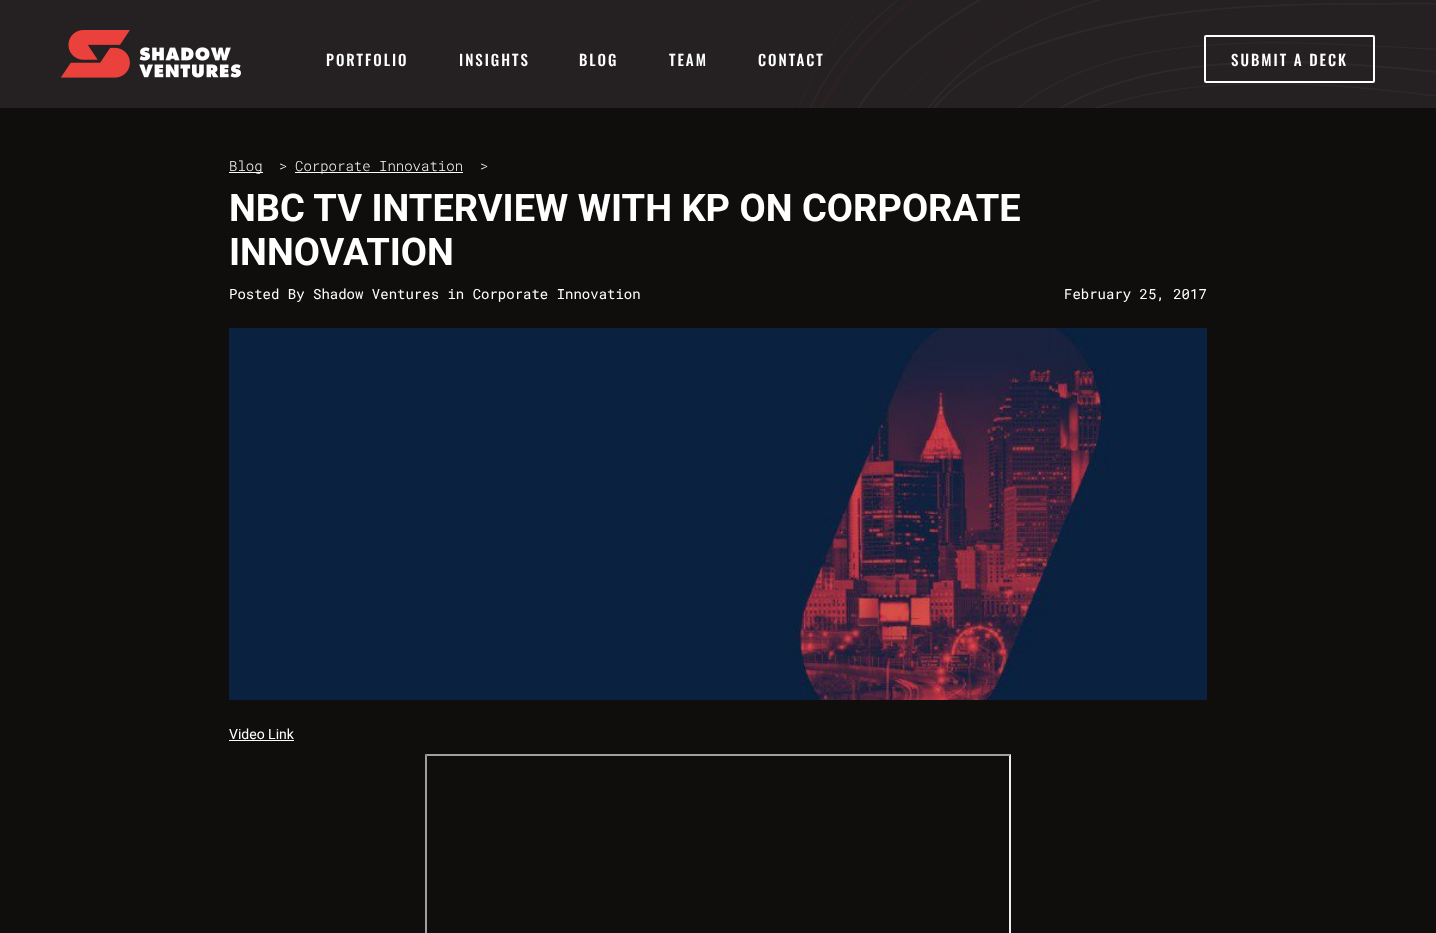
(async () => {
    const canvas = document.querySelector("canvas");
    canvas.width = 1436;
    canvas.height = 933;
    const context = canvas.getContext("2d");
    context.miterLimit = 4;
    context.fontKerning = "normal";
    function write(s, x, y, font, color) {
        context.font = font;
        context.fillStyle = color;
        context.fillText(s, x, y);
    }
    function block(x, y, w, h, color) {
        context.fillStyle = color;
        context.fillRect(x, y, w, h);
    }
    async function photo(src, x, y, w, h) {
        const img = new Image();
        img.src = src;
        await img.decode();
        context.drawImage(img, x, y, w, h);
    }

    block(0, 0, 1436, 933, "rgb(37, 33, 34)");
    await photo("media/1.png", 799, 0, 637, 108);
    await photo("media/2.png", 61, 30, 180, 48);
    context.letterSpacing = "2px";
    write("PORTFOLIO", 326, 66, "500 15px Oswald", "rgb(255, 255, 255)");
    write("INSIGHTS", 459, 66, "500 15px Oswald", "rgb(255, 255, 255)");
    write("BLOG", 579, 66, "500 15px Oswald", "rgb(255, 255, 255)");
    write("TEAM", 669, 66, "500 15px Oswald", "rgb(255, 255, 255)");
    write("CONTACT", 758, 66, "500 15px Oswald", "rgb(255, 255, 255)");
    context.beginPath();
    context.roundRect(1205, 36, 169, 46, 1);
    context.strokeStyle = "rgb(255, 255, 255)";
    context.lineWidth = 2;
    context.stroke();
    write("SUBMIT A DECK", 1231, 66, "500 15px Oswald", "rgb(255, 255, 255)");
    block(0, 108, 1436, 825, "rgb(15, 14, 13)");
    block(229, 172, 34, 1, "rgb(255, 255, 255)");
    context.letterSpacing = "0px";
    write("Blog", 229, 171, "300 14px Roboto Mono", "rgb(255, 255, 255)");
    write(">", 279, 171, "300 14px Roboto Mono", "rgb(255, 255, 255)");
    block(295, 172, 168, 1, "rgb(255, 255, 255)");
    write("Corporate Innovation", 295, 171, "300 14px Roboto Mono", "rgb(255, 255, 255)");
    write(">", 480, 171, "300 14px Roboto Mono", "rgb(255, 255, 255)");
    write("NBC TV INTERVIEW WITH KP ON CORPORATE", 229, 221, "bold 38px Roboto", "rgb(255, 255, 255)");
    write("INNOVATION", 229, 265, "bold 38px Roboto", "rgb(255, 255, 255)");
    write("Posted By Shadow Ventures in Corporate Innovation", 229, 299, "14px Roboto Mono", "rgb(255, 255, 255)");
    write("February 25, 2017", 1064, 299, "14px Roboto Mono", "rgb(255, 255, 255)");
    await photo("media/3.png", 229, 328, 978, 372);
    write("Video Link", 229, 739, "14px Roboto", "rgb(255, 255, 255)");
    block(229, 740, 65, 1, "rgb(255, 255, 255)");
    context.fillStyle = "rgb(159, 159, 159)";
    context.beginPath();
    context.moveTo(425, 754);
    context.lineTo(1011, 754);
    context.lineTo(1009, 756);
    context.lineTo(427, 756);
    context.closePath();
    context.fill();
    context.fillStyle = "rgb(238, 238, 238)";
    context.beginPath();
    context.moveTo(1011, 754);
    context.lineTo(1011, 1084);
    context.lineTo(1009, 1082);
    context.lineTo(1009, 756);
    context.closePath();
    context.fill();
    context.fillStyle = "rgb(159, 159, 159)";
    context.beginPath();
    context.moveTo(425, 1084);
    context.lineTo(425, 754);
    context.lineTo(427, 756);
    context.lineTo(427, 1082);
    context.closePath();
    context.fill();
})();
